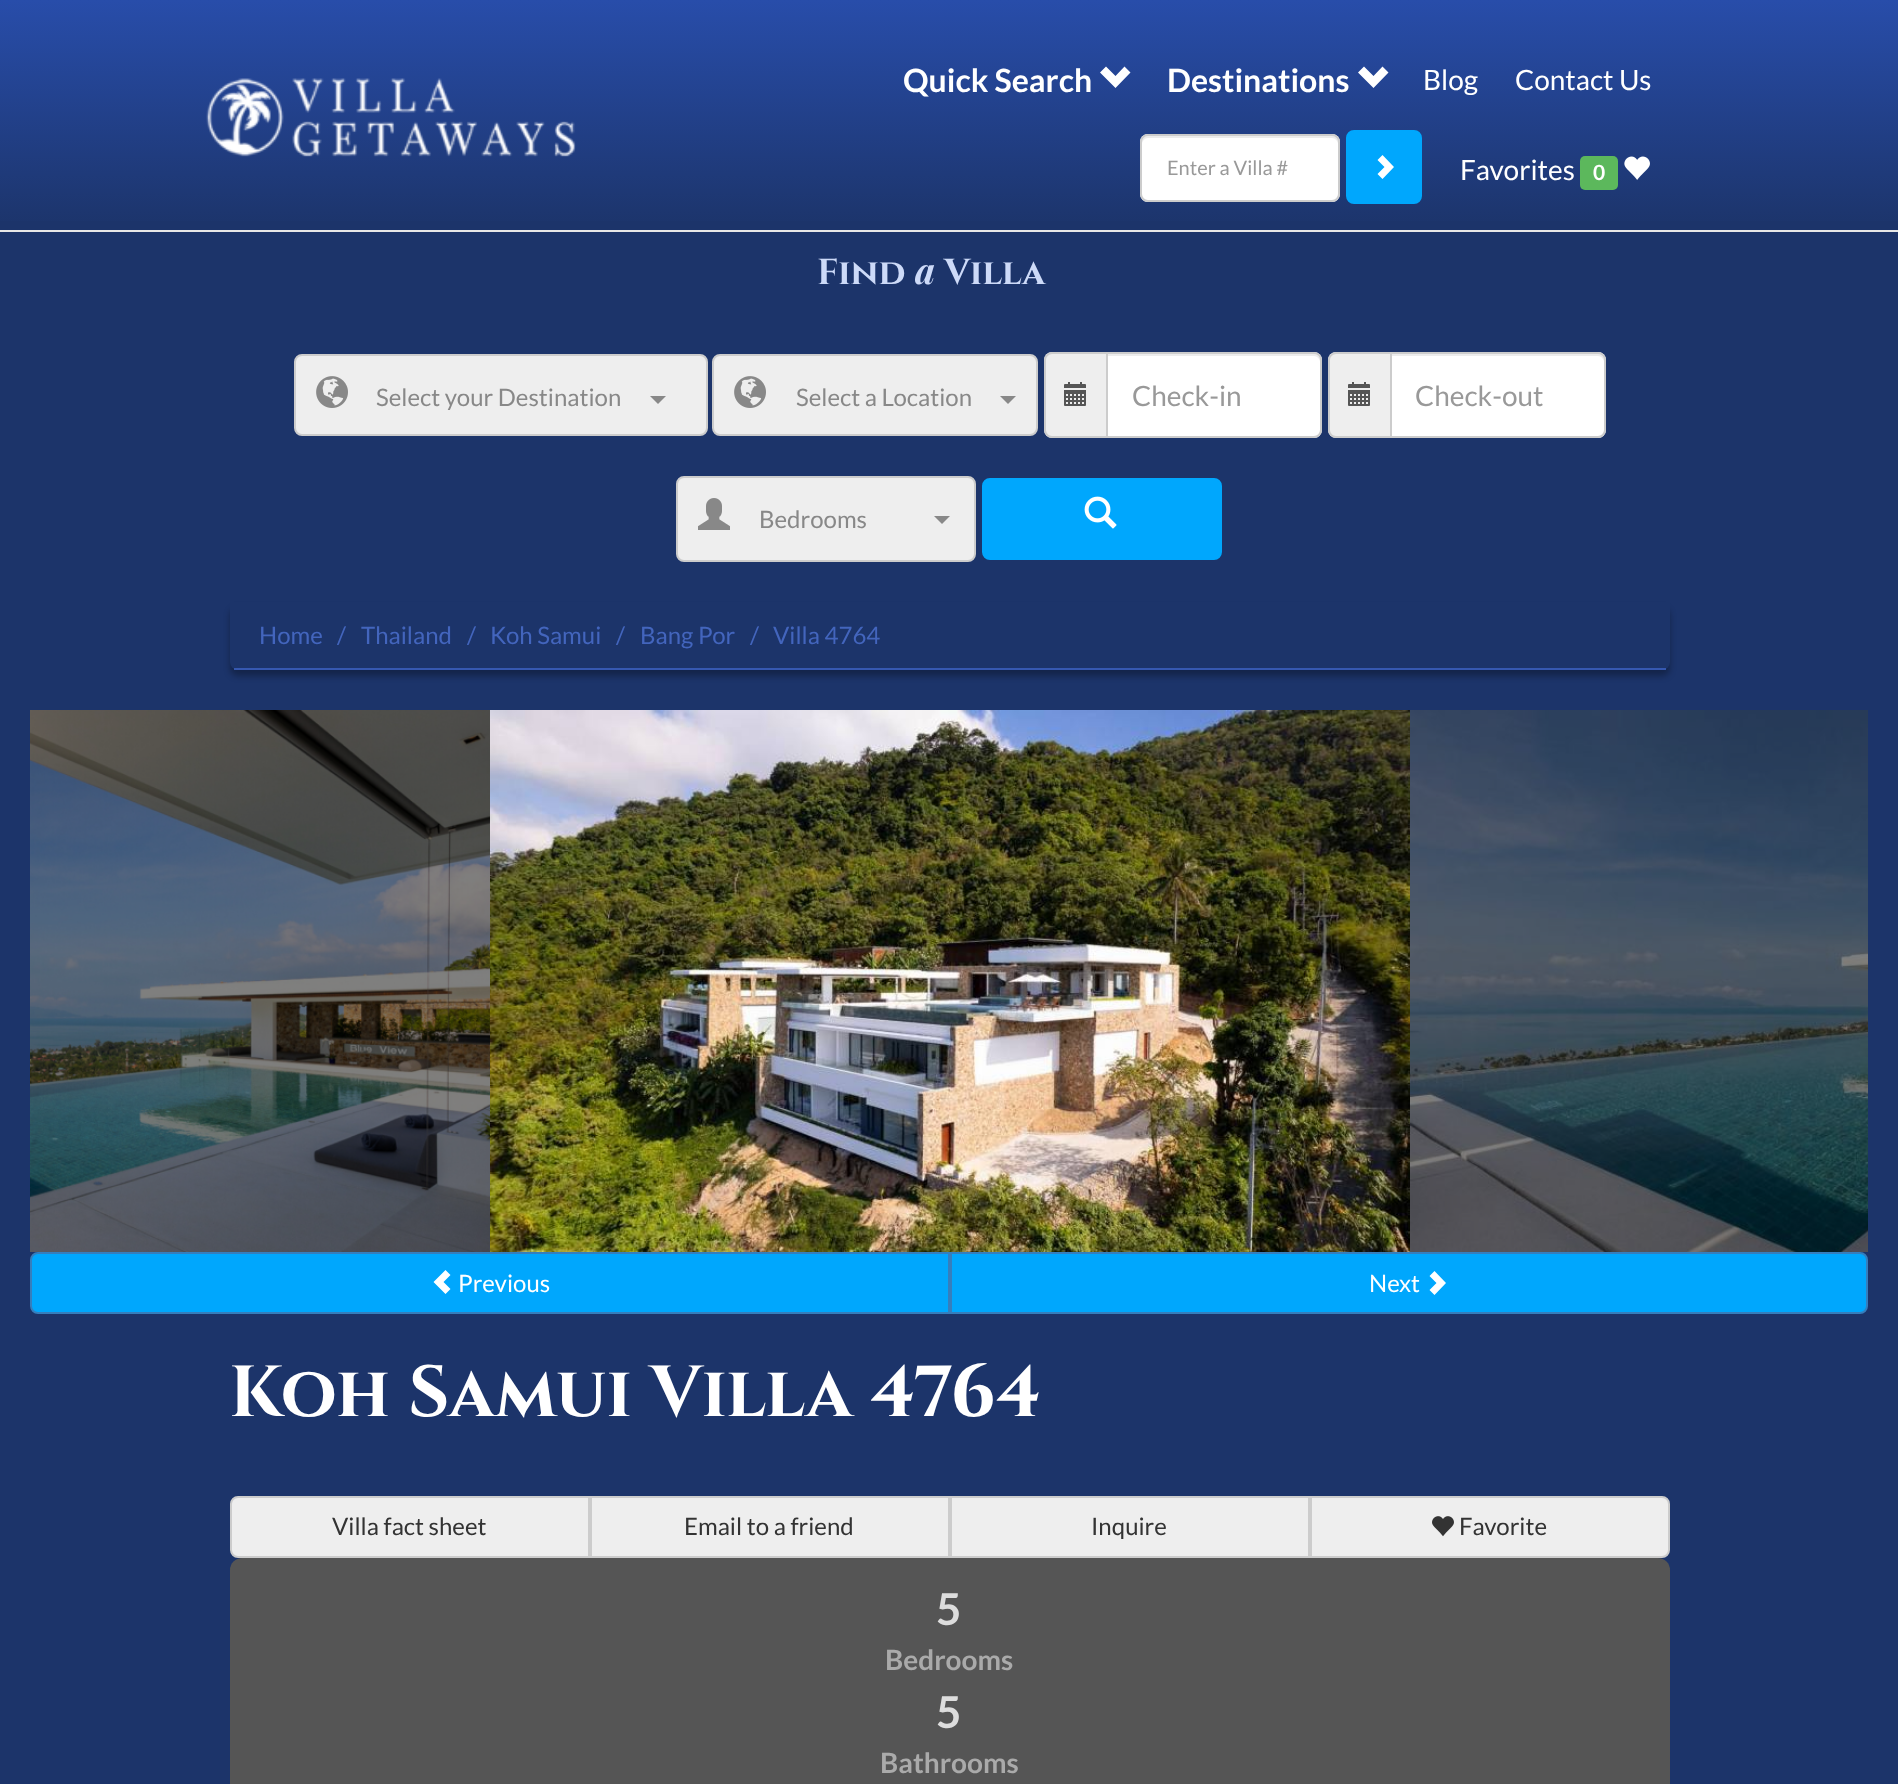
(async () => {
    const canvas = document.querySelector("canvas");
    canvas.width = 1898;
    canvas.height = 1784;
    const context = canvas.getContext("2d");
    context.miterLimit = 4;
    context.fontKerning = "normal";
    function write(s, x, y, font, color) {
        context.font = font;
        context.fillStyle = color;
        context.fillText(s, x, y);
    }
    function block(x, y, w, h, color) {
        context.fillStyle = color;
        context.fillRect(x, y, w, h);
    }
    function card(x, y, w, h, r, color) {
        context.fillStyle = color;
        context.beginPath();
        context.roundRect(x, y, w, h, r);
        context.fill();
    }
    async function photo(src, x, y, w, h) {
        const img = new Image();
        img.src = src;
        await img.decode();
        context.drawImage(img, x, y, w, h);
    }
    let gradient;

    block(0, 0, 1898, 1784, "rgb(28, 52, 106)");
    gradient = context.createLinearGradient(949, 0, 949, 230);
    gradient.addColorStop(0, "rgb(40, 77, 170)");
    gradient.addColorStop(1, "rgb(28, 52, 106)");
    context.fillStyle = gradient;
    context.fillRect(0, 0, 1898, 221);
    block(0, 230, 1898, 2, "rgb(231, 231, 231)");
    await photo("media/1.png", 206, 78, 370, 79);
    write("Quick Search", 903, 92, "bold 32px Lato", "rgb(255, 255, 255)");
    context.beginPath();
    context.moveTo(1100, 72.5);
    context.lineTo(1115.5, 88);
    context.lineTo(1130.5, 72.5);
    context.lineTo(1124.5, 66.5);
    context.lineTo(1115.5, 76);
    context.lineTo(1106, 66.5);
    context.closePath();
    context.fill();
    write("Destinations", 1167, 92, "bold 32px Lato", "rgb(255, 255, 255)");
    context.beginPath();
    context.moveTo(1358, 72.5);
    context.lineTo(1373.5, 88);
    context.lineTo(1388.5, 72.5);
    context.lineTo(1382.5, 66.5);
    context.lineTo(1373.5, 76);
    context.lineTo(1364, 66.5);
    context.closePath();
    context.fill();
    write("Blog", 1423, 90, "28px Lato", "rgb(255, 255, 255)");
    write("Contact Us", 1515, 90, "28px Lato", "rgb(255, 255, 255)");
    card(1140, 134, 200, 68, 8, "rgb(255, 255, 255)");
    context.fillStyle = "rgb(236, 236, 236)";
    context.beginPath();
    context.moveTo(1148, 138);
    context.lineTo(1332, 138);
    context.bezierCurveTo(1335, 138, 1338, 141, 1338, 144);
    context.lineTo(1338, 142);
    context.bezierCurveTo(1338, 139, 1335, 136, 1332, 136);
    context.lineTo(1148, 136);
    context.bezierCurveTo(1145, 136, 1142, 139, 1142, 142);
    context.lineTo(1142, 144);
    context.bezierCurveTo(1142, 141, 1145, 138, 1148, 138);
    context.closePath();
    context.fill();
    context.beginPath();
    context.roundRect(1141, 135, 198, 66, 7);
    context.strokeStyle = "rgb(204, 204, 204)";
    context.lineWidth = 2;
    context.stroke();
    write("Enter a Villa #", 1167, 175, "20px Lato", "rgb(153, 153, 153)");
    context.fillStyle = "rgb(0, 167, 253)";
    context.beginPath();
    context.roundRect(1347, 131, 74, 72, 7);
    context.fill();
    context.strokeStyle = "rgb(0, 167, 253)";
    context.stroke();
    context.fillStyle = "rgb(255, 255, 255)";
    context.beginPath();
    context.moveTo(1377.5, 174);
    context.lineTo(1384.5, 167);
    context.lineTo(1377.5, 160);
    context.lineTo(1382.5, 155);
    context.lineTo(1394, 167);
    context.lineTo(1382.5, 179);
    context.closePath();
    context.fill();
    write("Favorites", 1460, 180, "28px Lato", "rgb(255, 255, 255)");
    card(1580, 156, 38, 34, 5, "rgb(92, 184, 92)");
    write("0", 1593, 180, "bold 21px Lato", "rgb(255, 255, 255)");
    await photo("media/2.png", 1624, 156, 26, 24);
    write("Find", 817, 284, "bold 36px Cinzel", "rgb(205, 218, 248)");
    write("a", 915, 284, "italic bold 36px Playfair Display", "rgb(205, 218, 248)");
    write("Villa", 944, 284, "bold 36px Cinzel", "rgb(205, 218, 248)");
    context.fillStyle = "rgb(238, 238, 238)";
    context.beginPath();
    context.roundRect(295, 355, 412, 80, 7);
    context.fill();
    context.strokeStyle = "rgb(204, 204, 204)";
    context.stroke();
    await photo("media/3.png", 316, 376, 32, 32);
    write("Select your Destination", 376, 406, "24px Lato", "rgb(136, 136, 136)");
    context.beginPath();
    context.moveTo(650, 396);
    context.lineTo(666, 396);
    context.lineTo(658, 404);
    context.closePath();
    context.fill();
    context.fillStyle = "rgb(238, 238, 238)";
    context.beginPath();
    context.roundRect(713, 355, 324, 80, 7);
    context.fill();
    context.stroke();
    await photo("media/3.png", 734, 376, 32, 32);
    write("Select a Location", 796, 406, "24px Lato", "rgb(136, 136, 136)");
    context.beginPath();
    context.moveTo(1000, 396);
    context.lineTo(1016, 396);
    context.lineTo(1008, 404);
    context.closePath();
    context.fill();
    context.fillStyle = "rgb(238, 238, 238)";
    context.beginPath();
    context.roundRect(1044, 352, 62, 86, [8, 0, 0, 8]);
    context.fill();
    context.fillStyle = "rgb(204, 204, 204)";
    context.beginPath();
    context.moveTo(1052, 352);
    context.lineTo(1106, 352);
    context.lineTo(1106, 438);
    context.lineTo(1052, 438);
    context.bezierCurveTo(1048, 438, 1044, 434, 1044, 430);
    context.lineTo(1044, 360);
    context.bezierCurveTo(1044, 356, 1048, 352, 1052, 352);
    context.closePath();
    context.moveTo(1052, 354);
    context.lineTo(1106, 354);
    context.lineTo(1106, 436);
    context.lineTo(1052, 436);
    context.bezierCurveTo(1049, 436, 1046, 433, 1046, 430);
    context.lineTo(1046, 360);
    context.bezierCurveTo(1046, 357, 1049, 354, 1052, 354);
    context.closePath();
    context.fill("evenodd");
    await photo("media/4.png", 1064, 382, 22, 24);
    context.fillStyle = "rgb(255, 255, 255)";
    context.beginPath();
    context.roundRect(1106, 352, 216, 86, [0, 8, 8, 0]);
    context.fill();
    context.fillStyle = "rgb(236, 236, 236)";
    context.beginPath();
    context.moveTo(1108, 356);
    context.lineTo(1314, 356);
    context.bezierCurveTo(1317, 356, 1320, 359, 1320, 362);
    context.lineTo(1320, 360);
    context.bezierCurveTo(1320, 357, 1317, 354, 1314, 354);
    context.lineTo(1108, 354);
    context.closePath();
    context.fill();
    context.beginPath();
    context.roundRect(1107, 353, 214, 84, [0, 7, 7, 0]);
    context.stroke();
    write("Check-in", 1132, 406, "28px Lato", "rgb(153, 153, 153)");
    context.fillStyle = "rgb(238, 238, 238)";
    context.beginPath();
    context.roundRect(1328, 352, 62, 86, [8, 0, 0, 8]);
    context.fill();
    context.fillStyle = "rgb(204, 204, 204)";
    context.beginPath();
    context.moveTo(1336, 352);
    context.lineTo(1390, 352);
    context.lineTo(1390, 438);
    context.lineTo(1336, 438);
    context.bezierCurveTo(1332, 438, 1328, 434, 1328, 430);
    context.lineTo(1328, 360);
    context.bezierCurveTo(1328, 356, 1332, 352, 1336, 352);
    context.closePath();
    context.moveTo(1336, 354);
    context.lineTo(1390, 354);
    context.lineTo(1390, 436);
    context.lineTo(1336, 436);
    context.bezierCurveTo(1333, 436, 1330, 433, 1330, 430);
    context.lineTo(1330, 360);
    context.bezierCurveTo(1330, 357, 1333, 354, 1336, 354);
    context.closePath();
    context.fill("evenodd");
    await photo("media/4.png", 1348, 382, 22, 24);
    context.fillStyle = "rgb(255, 255, 255)";
    context.beginPath();
    context.roundRect(1390, 352, 216, 86, [0, 8, 8, 0]);
    context.fill();
    context.fillStyle = "rgb(236, 236, 236)";
    context.beginPath();
    context.moveTo(1392, 356);
    context.lineTo(1598, 356);
    context.bezierCurveTo(1601, 356, 1604, 359, 1604, 362);
    context.lineTo(1604, 360);
    context.bezierCurveTo(1604, 357, 1601, 354, 1598, 354);
    context.lineTo(1392, 354);
    context.closePath();
    context.fill();
    context.beginPath();
    context.roundRect(1391, 353, 214, 84, [0, 7, 7, 0]);
    context.stroke();
    write("Check-out", 1415, 406, "28px Lato", "rgb(153, 153, 153)");
    context.fillStyle = "rgb(238, 238, 238)";
    context.beginPath();
    context.roundRect(677, 477, 298, 84, 7);
    context.fill();
    context.stroke();
    await photo("media/5.png", 698, 498, 32, 32);
    write("Bedrooms", 759, 528, "24px Lato", "rgb(136, 136, 136)");
    context.beginPath();
    context.moveTo(934, 516);
    context.lineTo(950, 516);
    context.lineTo(942, 524);
    context.closePath();
    context.fill();
    context.fillStyle = "rgb(0, 167, 253)";
    context.beginPath();
    context.roundRect(983, 479, 238, 80, 7);
    context.fill();
    context.strokeStyle = "rgb(0, 167, 253)";
    context.stroke();
    await photo("media/6.png", 1084, 496, 33, 33);
    context.fillStyle = "rgba(0, 0, 0, 0.3)";
    context.filter = "blur(3px)";
    context.beginPath();
    context.roundRect(230, 608, 1440, 68, 8);
    context.fill();
    context.filter = "none";
    context.fillStyle = "rgb(28, 52, 106)";
    context.beginPath();
    context.roundRect(230, 602, 1440, 68, [0, 0, 8, 8]);
    context.fill();
    block(234, 668, 1432, 2, "rgb(54, 88, 176)");
    write("Home", 259, 644, "24px Lato", "rgb(67, 101, 189)");
    write("/", 337, 644, "24px Lato", "rgb(67, 101, 189)");
    write("Thailand", 361, 644, "24px Lato", "rgb(67, 101, 189)");
    write("/", 467, 644, "24px Lato", "rgb(67, 101, 189)");
    write("Koh Samui", 490, 644, "24px Lato", "rgb(67, 101, 189)");
    write("/", 616, 644, "24px Lato", "rgb(67, 101, 189)");
    write("Bang Por", 640, 644, "24px Lato", "rgb(67, 101, 189)");
    write("/", 750, 644, "24px Lato", "rgb(67, 101, 189)");
    write("Villa 4764", 773, 644, "24px Lato", "rgb(67, 101, 189)");
    block(30, 710, 1838, 542, "rgb(0, 0, 0)");
    await photo("media/7.png", 30, 710, 460, 542);
    await photo("media/8.png", 490, 710, 920, 542);
    await photo("media/9.png", 1410, 710, 458, 542);
    context.fillStyle = "rgb(0, 167, 253)";
    context.beginPath();
    context.roundRect(31, 1253, 918, 60, [7, 0, 0, 7]);
    context.fill();
    context.strokeStyle = "rgb(53, 126, 189)";
    context.stroke();
    context.fillStyle = "rgb(255, 255, 255)";
    context.beginPath();
    context.moveTo(433.5, 1282);
    context.lineTo(445.5, 1294);
    context.lineTo(450.5, 1289);
    context.lineTo(443.5, 1282);
    context.lineTo(450.5, 1275);
    context.lineTo(445.5, 1270);
    context.closePath();
    context.fill();
    write("Previous", 458, 1292, "24px Lato", "rgb(255, 255, 255)");
    context.fillStyle = "rgb(0, 167, 253)";
    context.beginPath();
    context.roundRect(951, 1253, 916, 60, [0, 7, 7, 0]);
    context.fill();
    context.stroke();
    write("Next", 1369, 1292, "24px Lato", "rgb(255, 255, 255)");
    context.beginPath();
    context.moveTo(1429.5, 1290);
    context.lineTo(1436.5, 1283);
    context.lineTo(1429.5, 1276);
    context.lineTo(1434.5, 1271);
    context.lineTo(1446, 1283);
    context.lineTo(1434.5, 1295);
    context.closePath();
    context.fill();
    write("Koh Samui Villa 4764", 229, 1416, "bold 72px Cinzel", "rgb(255, 255, 255)");
    context.fillStyle = "rgb(238, 238, 238)";
    context.beginPath();
    context.roundRect(231, 1497, 358, 60, [7, 0, 0, 7]);
    context.fill();
    context.strokeStyle = "rgb(204, 204, 204)";
    context.stroke();
    write("Villa fact sheet", 332, 1535, "24px Lato", "rgb(51, 51, 51)");
    context.fillStyle = "rgb(238, 238, 238)";
    context.beginPath();
    context.rect(591, 1497, 358, 60);
    context.fill();
    context.stroke();
    write("Email to a friend", 684, 1535, "24px Lato", "rgb(51, 51, 51)");
    context.fillStyle = "rgb(238, 238, 238)";
    context.beginPath();
    context.rect(951, 1497, 358, 60);
    context.fill();
    context.stroke();
    write("Inquire", 1091, 1535, "24px Lato", "rgb(51, 51, 51)");
    context.fillStyle = "rgb(238, 238, 238)";
    context.beginPath();
    context.roundRect(1311, 1497, 358, 60, [0, 7, 7, 0]);
    context.fill();
    context.stroke();
    await photo("media/10.png", 1432, 1516, 22, 21);
    write("Favorite", 1459, 1535, "24px Lato", "rgb(51, 51, 51)");
    card(230, 1558, 1440, 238, 12, "rgb(85, 85, 85)");
    write("5", 936, 1625, "bold 44px Lato", "rgb(221, 221, 221)");
    write("Bedrooms", 885, 1670, "bold 28px Lato", "rgb(170, 170, 170)");
    write("5", 936, 1728, "bold 44px Lato", "rgb(221, 221, 221)");
    write("Bathrooms", 880, 1773, "bold 28px Lato", "rgb(170, 170, 170)");
})();
